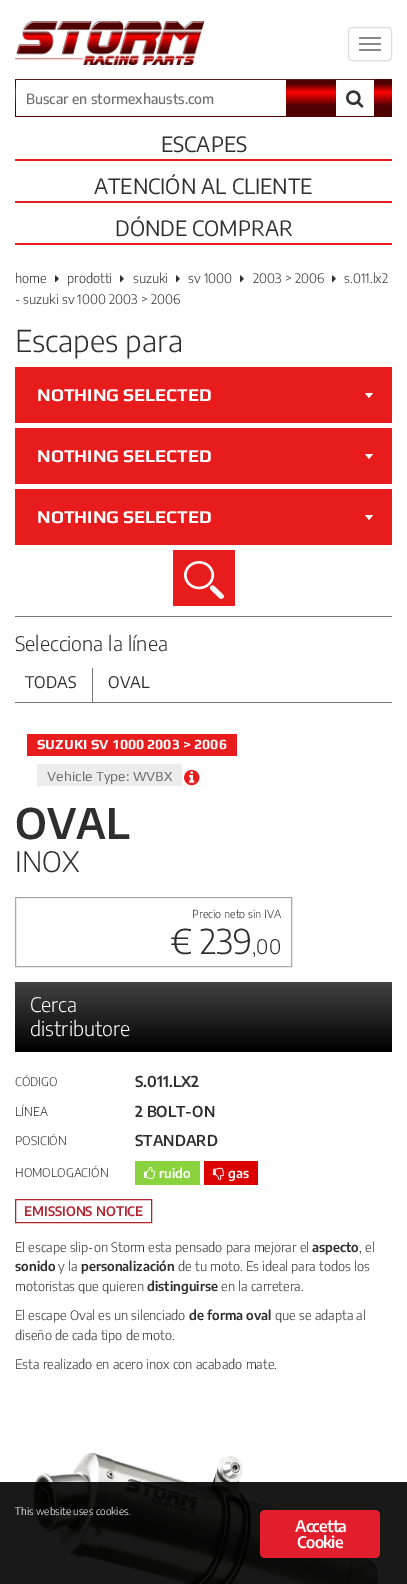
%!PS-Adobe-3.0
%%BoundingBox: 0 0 407 1584
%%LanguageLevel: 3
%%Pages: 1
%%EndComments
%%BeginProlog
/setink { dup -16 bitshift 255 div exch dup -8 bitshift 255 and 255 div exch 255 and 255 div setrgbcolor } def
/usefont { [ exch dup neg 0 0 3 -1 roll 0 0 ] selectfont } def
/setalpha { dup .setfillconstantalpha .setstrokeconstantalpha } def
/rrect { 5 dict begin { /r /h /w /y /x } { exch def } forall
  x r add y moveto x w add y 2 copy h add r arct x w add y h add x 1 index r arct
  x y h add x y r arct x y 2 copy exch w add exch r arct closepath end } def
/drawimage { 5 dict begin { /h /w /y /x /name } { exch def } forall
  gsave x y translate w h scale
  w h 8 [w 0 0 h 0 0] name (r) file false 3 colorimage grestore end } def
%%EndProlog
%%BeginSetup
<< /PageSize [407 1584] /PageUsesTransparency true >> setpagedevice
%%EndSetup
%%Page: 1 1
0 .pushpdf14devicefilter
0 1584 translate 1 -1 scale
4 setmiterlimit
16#FFFFFF setink
0 0 407 1584 rectfill
(img1.raw) 15 21 189 44 drawimage
16#DDDDDD setink
348.5 27.5 43 33 3.5 rrect stroke
16#888888 setink
359 37 22 2 1 rrect fill
359 43 22 2 1 rrect fill
359 49 22 2 1 rrect fill
gsave 15 80 moveto 375 80 lineto 375 117 lineto 15 117 lineto closepath clip newpath
<< /ShadingType 2 /ColorSpace /DeviceRGB /Coords [195 79 195 117] /Extend [true true] /Function << /FunctionType 3 /Domain [0 1] /Functions [<< /FunctionType 2 /Domain [0 1] /C0 [0.31 0 0] /C1 [0.31 0 0] /N 1 >> << /FunctionType 2 /Domain [0 1] /C0 [0.31 0 0] /C1 [1 0 0] /N 1 >> << /FunctionType 2 /Domain [0 1] /C0 [1 0 0] /C1 [0.31 0 0] /N 1 >> << /FunctionType 2 /Domain [0 1] /C0 [0.31 0 0] /C1 [0.31 0 0] /N 1 >>] /Bounds [0.12 0.35 0.7] /Encode [0 1 0 1 0 1 0 1] >> >> shfill grestore
16#611A1A setink
15 79 360 1 rectfill
16#FFFFFF setink
16 80 270 36 rectfill
/EncodeSans-Medium 14 usefont
16#717171 setink
26 104 moveto (Buscar en stormexhausts.com) show
16#FFFFFF setink
336 80 38 36 rectfill
(img2.raw) 346 90 18 18 drawimage
gsave 375 79 moveto 392 79 lineto 392 117 lineto 375 117 lineto closepath clip newpath
<< /ShadingType 2 /ColorSpace /DeviceRGB /Coords [362 79 362 117] /Extend [true true] /Function << /FunctionType 3 /Domain [0 1] /Functions [<< /FunctionType 2 /Domain [0 1] /C0 [0.31 0 0] /C1 [0.31 0 0] /N 1 >> << /FunctionType 2 /Domain [0 1] /C0 [0.31 0 0] /C1 [1 0 0] /N 1 >> << /FunctionType 2 /Domain [0 1] /C0 [1 0 0] /C1 [0.31 0 0] /N 1 >> << /FunctionType 2 /Domain [0 1] /C0 [0.31 0 0] /C1 [0.31 0 0] /N 1 >>] /Bounds [0.12 0.35 0.7] /Encode [0 1 0 1 0 1 0 1] >> >> shfill grestore
16#E81C1C setink
15 159 377 2 rectfill
/EncodeSans-Regular 21 usefont
16#2E2E2E setink
161 152 moveto (ESCAPES) show
16#E81C1C setink
15 201 377 2 rectfill
16#2E2E2E setink
94 194 moveto (ATENCIÓN AL CLIENTE) show
16#E81C1C setink
15 243 377 2 rectfill
16#2E2E2E setink
115 236 moveto (DÓNDE COMPRAR) show
/EncodeSans-Light 13 usefont
15 283 moveto (home) show
(img3.raw) 55 275 4 8 drawimage
67 283 moveto (prodotti) show
(img3.raw) 120 275 4 8 drawimage
133 283 moveto (suzuki) show
(img3.raw) 176 275 4 8 drawimage
188 283 moveto (sv 1000) show
(img3.raw) 240 275 4 8 drawimage
253 283 moveto (2003 > 2006) show
(img3.raw) 332 275 4 8 drawimage
344 283 moveto (s.011.lx2) show
15 304 moveto (- suzuki sv 1000 2003 > 2006) show
16#777777 setink
15 616 377 1 rectfill
/EncodeSans-Light 30 usefont
16#2E2E2E setink
15 352 moveto (Escapes para) show
16#E81C1C setink
15 367 377 56 rectfill
/Play-Bold 18 usefont
16#FFFFFF setink
37 401 moveto (NOTHING SELECTED) show
365 393 moveto 373 393 lineto 369 398 lineto closepath fill
16#E81C1C setink
15 428 377 56 rectfill
16#FFFFFF setink
37 462 moveto (NOTHING SELECTED) show
365 454 moveto 373 454 lineto 369 459 lineto closepath fill
16#E81C1C setink
15 489 377 56 rectfill
16#FFFFFF setink
37 523 moveto (NOTHING SELECTED) show
365 515 moveto 373 515 lineto 369 520 lineto closepath fill
16#E81C1C setink
173 550 62 56 rectfill
(img4.raw) 184 561 40 38 drawimage
16#777777 setink
15 702 377 1 rectfill
/EncodeSans-Light 20 usefont
16#2E2E2E setink
15 651 moveto (Selecciona la línea) show
/EncodeSans-Regular 16 usefont
25 688 moveto (TODAS) show
16#777777 setink
92 668 1 34 rectfill
16#2E2E2E setink
108 688 moveto (OVAL) show
16#E81C1C setink
27 734 210 22 rectfill
/Play-Bold 14 usefont
16#FFFFFF setink
37 749 moveto (SUZUKI SV 1000 2003 > 2006) show
16#ECECED setink
37 764 145 22 rectfill
/Play-Regular 14 usefont
16#717171 setink
47 781 moveto (Vehicle Type: WVBX) show
(img5.raw) 184 769 16 17 drawimage
/EncodeSans-SemiBold 42 usefont
16#2E2E2E setink
15 839 moveto (OVAL) show
/EncodeSans-Light 28 usefont
15 872 moveto (INOX) show
16#A8A8A8 setink
15.5 897.5 276 69 rectstroke
/EncodeSans-Light 11 usefont
16#2E2E2E setink
192 918 moveto (Precio neto sin IVA) show
/EncodeSans-Light 34 usefont
170 954 moveto (€ 239) show
/EncodeSans-Light 20 usefont
252 954 moveto (,00) show
gsave 15 982 moveto 392 982 lineto 392 1052 lineto 15 1052 lineto closepath clip newpath
<< /ShadingType 2 /ColorSpace /DeviceRGB /Coords [204 982 204 1052] /Extend [true true] /Function << /FunctionType 2 /Domain [0 1] /C0 [0.263 0.263 0.263] /C1 [0 0 0] /N 1 >> >> shfill grestore
16#FFFFFF setink
30 1012 moveto (Cerca) show
30 1036 moveto (distributore) show
/EncodeSans-Light 12 usefont
16#2E2E2E setink
15 1086 moveto (CÓDIGO) show
/EncodeSans-SemiBold 15 usefont
135 1087 moveto (S.011.LX2) show
/EncodeSans-Light 12 usefont
15 1116 moveto (LÍNEA) show
/EncodeSans-SemiBold 15 usefont
135 1117 moveto (2 BOLT-ON) show
/EncodeSans-Light 12 usefont
15 1145 moveto (POSICIÓN) show
/EncodeSans-SemiBold 15 usefont
135 1146 moveto (STANDARD) show
/EncodeSans-Light 12 usefont
15 1177 moveto (HOMOLOGACIÓN) show
16#8BD23F setink
135 1161 65 24 rectfill
(img6.raw) 144 1166 12 13 drawimage
/EncodeSans-SemiBold 13 usefont
16#FFFFFF setink
159 1178 moveto (ruido) show
16#DC0000 setink
204 1161 54 24 rectfill
(img7.raw) 213 1167 12 13 drawimage
16#FFFFFF setink
228 1178 moveto (gas) show
16#B02430 setink
15.5 1199.5 136 23 rectstroke
24 1216 moveto (EMISSIONS NOTICE) show
/EncodeSans-Light 13 usefont
16#2E2E2E setink
15 1252 moveto (El escape slip-on Storm esta pensado para mejorar el) show
/EncodeSans-SemiBold 13 usefont
312 1252 moveto (aspecto) show
/EncodeSans-Light 13 usefont
359 1252 moveto (, el) show
/EncodeSans-SemiBold 13 usefont
15 1271 moveto (sonido) show
/EncodeSans-Light 13 usefont
58 1271 moveto (y la) show
/EncodeSans-SemiBold 13 usefont
81 1271 moveto (personalización) show
/EncodeSans-Light 13 usefont
178 1271 moveto (de tu moto. Es ideal para todos los) show
15 1291 moveto (motoristas que quieren) show
/EncodeSans-SemiBold 13 usefont
147 1291 moveto (distinguirse) show
/EncodeSans-Light 13 usefont
221 1291 moveto (en la carretera.) show
15 1320 moveto (El escape Oval es un silenciado) show
/EncodeSans-SemiBold 13 usefont
189 1320 moveto (de forma oval) show
/EncodeSans-Light 13 usefont
[
    [(que se adapta al) 275 1320]
    [(diseño de cada tipo de moto.) 15 1340]
    [(Esta realizado en acero inox con acabado mate.) 15 1369]
] { aload pop moveto show } forall
(img8.raw) 33 1452 346 132 drawimage
0.9 setalpha
16#000000 setink
0 1482 407 102 rectfill
/EncodeSans-Light 10.25 usefont
1 setalpha
16#FFFFFF setink
15 1515 moveto (This website uses cookies.) show
16#E21D2C setink
260 1510 120 48 5 rrect fill
/EncodeSans-SemiBold 16 usefont
16#FFFFFF setink
295 1532 moveto -0.75 0 (Accetta) ashow
297 1548 moveto -0.75 0 (Cookie) ashow
.poppdf14devicefilter showpage
%%EOF
